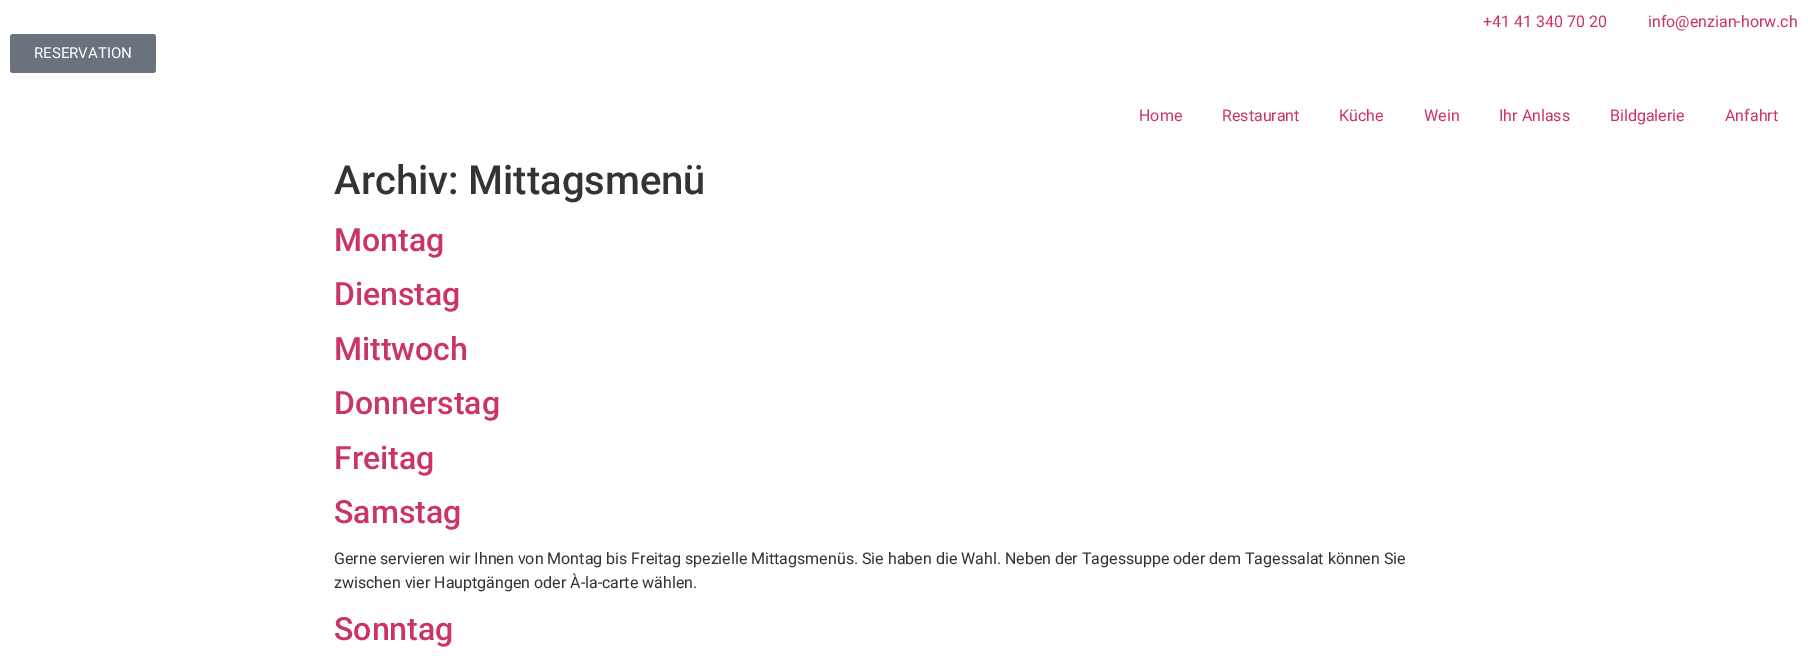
%!PS-Adobe-3.0
%%BoundingBox: 0 0 1808 658
%%LanguageLevel: 3
%%Pages: 1
%%EndComments
%%BeginProlog
/setink { dup -16 bitshift 255 div exch dup -8 bitshift 255 and 255 div exch 255 and 255 div setrgbcolor } def
/usefont { [ exch dup neg 0 0 3 -1 roll 0 0 ] selectfont } def
/rrect { 5 dict begin { /r /h /w /y /x } { exch def } forall
  x r add y moveto x w add y 2 copy h add r arct x w add y h add x 1 index r arct
  x y h add x y r arct x y 2 copy exch w add exch r arct closepath end } def
%%EndProlog
%%BeginSetup
<< /PageSize [1808 658] >> setpagedevice
%%EndSetup
%%Page: 1 1
0 658 translate 1 -1 scale
4 setmiterlimit
16#FFFFFF setink
0 0 1808 658 rectfill
/Roboto-Regular 16 usefont
16#CC3366 setink
1483 27 moveto (+41 41 340 70 20) show
1648 27 moveto (info@enzian-horw.ch) show
16#69727D setink
10 34 146 39 3 rrect fill
/Roboto-Regular 15 usefont
16#FFFFFF setink
34 58 moveto (RESERVATION) show
/Roboto-Regular 16 usefont
16#CC3366 setink
[
    [(Home) 1139 121]
    [(Restaurant) 1222 121]
    [(Küche) 1339 121]
    [(Wein) 1424 121]
    [(Ihr Anlass) 1499 121]
    [(Bildgalerie) 1610 121]
    [(Anfahrt) 1725 121]
] { aload pop moveto show } forall
/Roboto-Medium 40 usefont
16#333333 setink
334 194 moveto (Archiv: Mittagsmenü) show
/Roboto-Medium 32 usefont
16#CC3366 setink
[
    [(Montag) 334 251]
    [(Dienstag) 334 305]
    [(Mittwoch) 334 360]
    [(Donnerstag) 334 414]
    [(Freitag) 334 469]
    [(Samstag) 334 523]
] { aload pop moveto show } forall
/Roboto-Regular 16 usefont
16#333333 setink
334 564 moveto (Gerne servieren wir Ihnen von Montag bis Freitag spezielle Mittagsmenüs. Sie haben die Wahl. Neben der Tagessuppe oder dem Tagessalat können Sie) show
334 588 moveto (zwischen vier Hauptgängen oder À-la-carte wählen.) show
/Roboto-Medium 32 usefont
16#CC3366 setink
334 640 moveto (Sonntag) show
showpage
%%EOF
